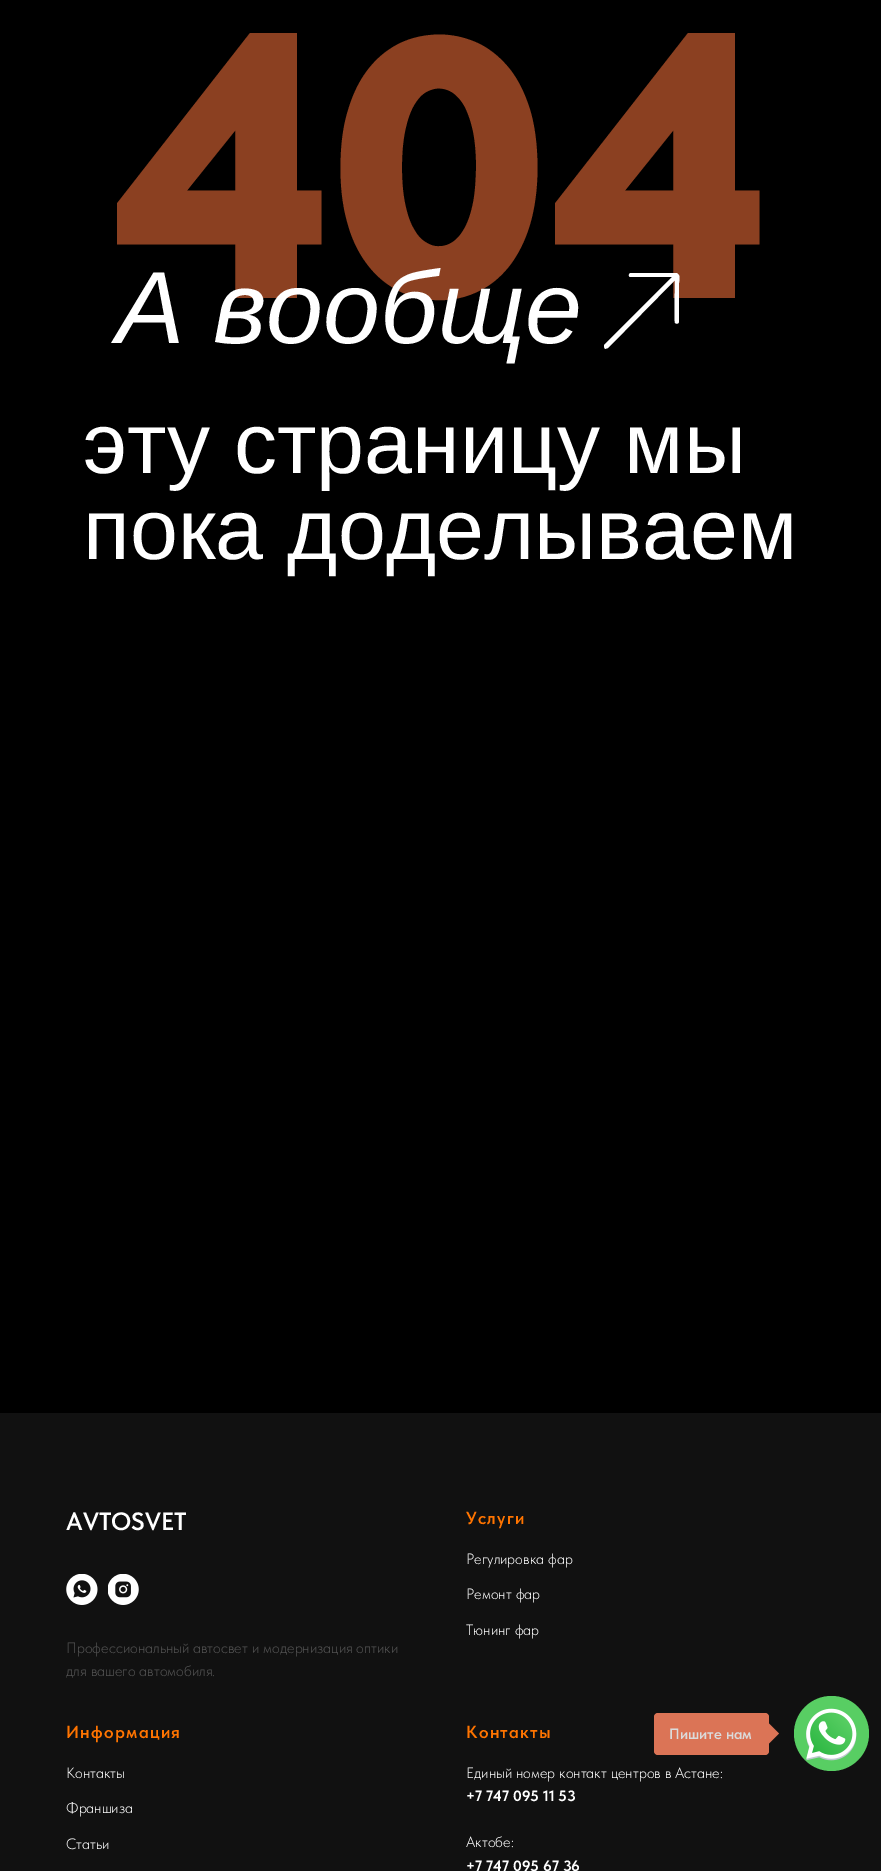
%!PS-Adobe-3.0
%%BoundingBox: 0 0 881 1871
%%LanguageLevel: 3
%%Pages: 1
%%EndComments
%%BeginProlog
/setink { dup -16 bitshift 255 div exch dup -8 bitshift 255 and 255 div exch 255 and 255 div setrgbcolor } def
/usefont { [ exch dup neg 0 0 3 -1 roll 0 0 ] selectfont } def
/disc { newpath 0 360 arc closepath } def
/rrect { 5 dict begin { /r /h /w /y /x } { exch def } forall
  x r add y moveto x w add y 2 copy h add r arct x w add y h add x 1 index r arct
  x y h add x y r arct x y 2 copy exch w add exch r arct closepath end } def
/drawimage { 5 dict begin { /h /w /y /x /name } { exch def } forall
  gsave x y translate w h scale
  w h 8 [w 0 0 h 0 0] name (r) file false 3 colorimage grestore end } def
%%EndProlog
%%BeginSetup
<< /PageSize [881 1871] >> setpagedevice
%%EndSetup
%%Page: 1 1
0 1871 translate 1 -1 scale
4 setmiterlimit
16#111111 setink
0 0 881 1871 rectfill
16#000000 setink
0 0 881 1413 rectfill
/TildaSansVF-Black 375 usefont
16#8B4021 setink
111 298 moveto (404) show
/LiberationSans-Italic 102.5 usefont
16#FFFFFF setink
116 343 moveto (А вообще) show
677 273 moveto 679 275 lineto 680 278 679 283 679 283 curveto 679 322 lineto 678 324 677 324 675 323 curveto 674 321 675 283 675 280 curveto 608 348 lineto 605 349 lineto 604 347 lineto 604 345 lineto 672 277 lineto 630 277 lineto 628 276 629 273 631 273 curveto closepath fill
/LiberationSans-Regular 86.25 usefont
83 473 moveto (эту страницу мы) show
83 559 moveto (пока доделываем) show
/TildaSansVF-SemiBold 25 usefont
66 1530 moveto (AVTOSVET) show
(img1.raw) 66 1574 32 31 drawimage
(img2.raw) 108 1574 31 31 drawimage
/TildaSansVF-Light 15 usefont
16#525252 setink
66 1653 moveto (Профессиональный автосвет и модернизация оптики) show
66 1676 moveto (для вашего автомобиля.) show
/TildaSansVF-SemiBold 17.5 usefont
16#FF7400 setink
466 1524 moveto 1.25 0 (Услуги) ashow
/TildaSansVF-Light 15 usefont
16#FFFFFF setink
[
    [(Регулировка фар) 466 1564]
    [(Ремонт фар) 466 1599]
    [(Тюнинг фар) 466 1635]
] { aload pop moveto show } forall
/TildaSansVF-SemiBold 17.5 usefont
16#FF7400 setink
66 1738 moveto 1.25 0 (Информация) ashow
/TildaSansVF-Light 15 usefont
16#FFFFFF setink
[
    [(Контакты) 66 1778]
    [(Франшиза) 66 1813]
    [(Статьи) 66 1849]
] { aload pop moveto show } forall
/TildaSansVF-SemiBold 17.5 usefont
16#FF7400 setink
466 1738 moveto 1.25 0 (Контакты) ashow
/TildaSansVF-Light 15 usefont
16#FFFFFF setink
466 1778 moveto (Единый номер контакт центров в Астане:) show
/TildaSansVF-Bold 15 usefont
466 1801 moveto (+7 747 095 11 53) show
/TildaSansVF-Light 15 usefont
466 1847 moveto (Актобе:) show
/TildaSansVF-Bold 15 usefont
466 1871 moveto (+7 747 095 67 36) show
16#DB7456 setink
654 1713 115 42 4 rrect fill
/TildaSansVF-SemiBold 15 usefont
16#DBDBDB setink
669 1739 moveto (Пишите нам) show
16#DB7456 setink
769 1743.5 moveto 769 1723.5 lineto 779 1733.5 lineto closepath fill
16#58CE63 setink
831.5 1733.5 37.5 disc fill
(img3.raw) 806 1708 51 53 drawimage
showpage
%%EOF
